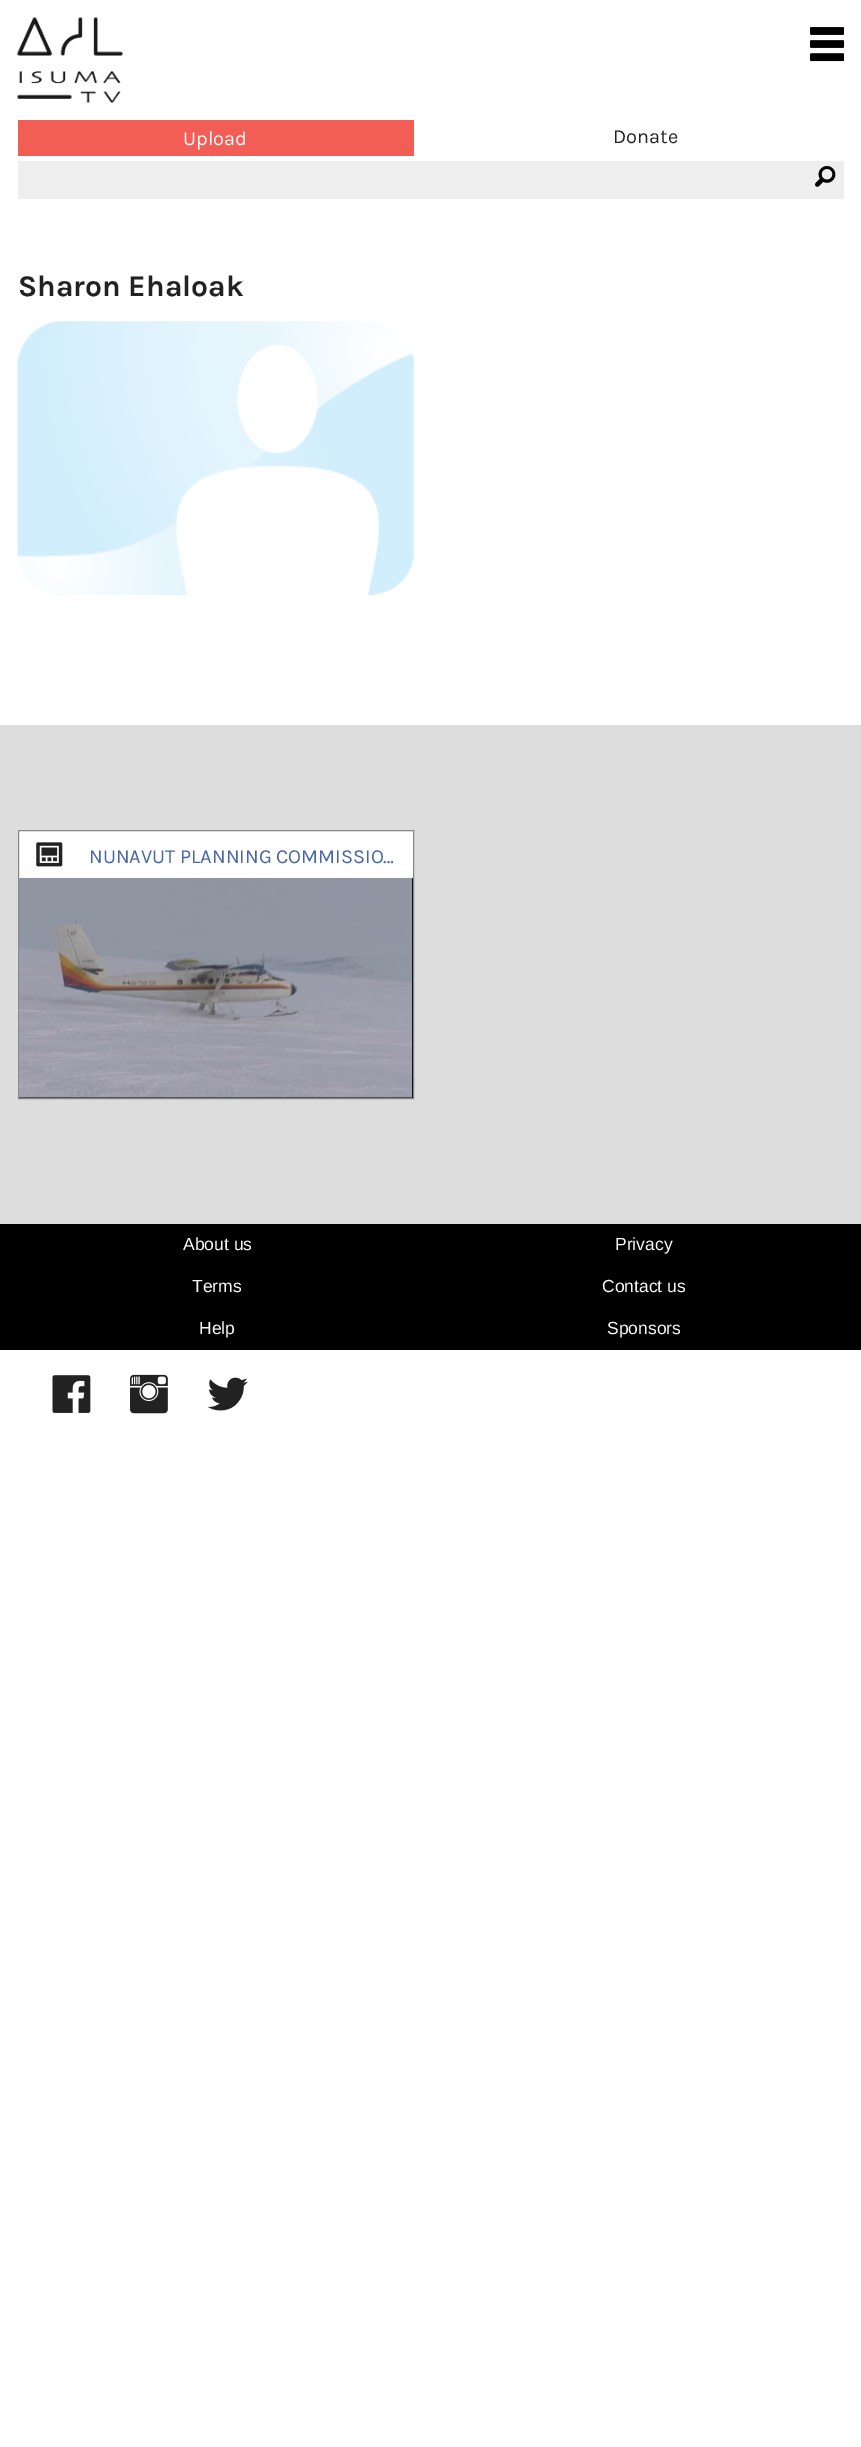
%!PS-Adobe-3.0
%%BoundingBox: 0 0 861 2447
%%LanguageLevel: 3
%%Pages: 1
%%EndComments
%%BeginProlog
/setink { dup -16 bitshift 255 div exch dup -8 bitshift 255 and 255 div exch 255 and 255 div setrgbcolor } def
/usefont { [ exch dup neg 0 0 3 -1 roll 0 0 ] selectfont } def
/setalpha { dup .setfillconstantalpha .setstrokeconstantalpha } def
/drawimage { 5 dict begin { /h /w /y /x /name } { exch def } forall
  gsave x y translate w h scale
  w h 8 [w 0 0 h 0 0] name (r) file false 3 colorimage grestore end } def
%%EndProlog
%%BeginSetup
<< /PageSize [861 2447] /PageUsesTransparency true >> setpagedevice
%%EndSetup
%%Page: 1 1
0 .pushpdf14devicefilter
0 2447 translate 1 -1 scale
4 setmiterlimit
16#FFFFFF setink
0 0 861 2447 rectfill
(img1.raw) 17 17 106 86 drawimage
(img2.raw) 810 27 35 35 drawimage
16#F25D55 setink
18 120 396 36 rectfill
/Karla-Regular 20 usefont
16#FFFFFF setink
183 145 moveto (Upload) show
16#222222 setink
613 143 moveto (Donate) show
16#EEEEEE setink
18 161 826 38 rectfill
(img3.raw) 815 166 21 21 drawimage
/Karla-Bold 30 usefont
16#222222 setink
18 296 moveto (Sharon Ehaloak) show
(img4.raw) 17 321 397 274 drawimage
16#DDDDDD setink
0 725 861 499 rectfill
16#FFFFFF setink
19 831 394 47 rectfill
16#888888 setink
18.5 830.5 395 268 rectstroke
16#000000 setink
19 878 394 220 rectfill
(img6.raw) 18 877 395 221 drawimage
0.95 setalpha
16#FFFFFF setink
19 877 394 1 rectfill
1 setalpha
(img5.raw) 36 842 27 25 drawimage
/Karla-Regular 20 usefont
16#4766A7 setink
89 863 moveto (NUNAVUT PLANNING COMMISSIO…) show
16#000000 setink
0 1224 861 126 rectfill
/LiberationSans-Regular 17.5 usefont
16#F9F9F9 setink
[
    [(About us) 183 1250]
    [(Privacy) 615 1250]
    [(Terms) 192 1292]
    [(Contact us) 602 1292]
    [(Help) 199 1334]
    [(Sponsors) 607 1334]
] { aload pop moveto show } forall
(img7.raw) 52 1375 39 38 drawimage
(img8.raw) 130 1374 38 40 drawimage
(img9.raw) 207 1377 41 34 drawimage
.poppdf14devicefilter showpage
%%EOF
